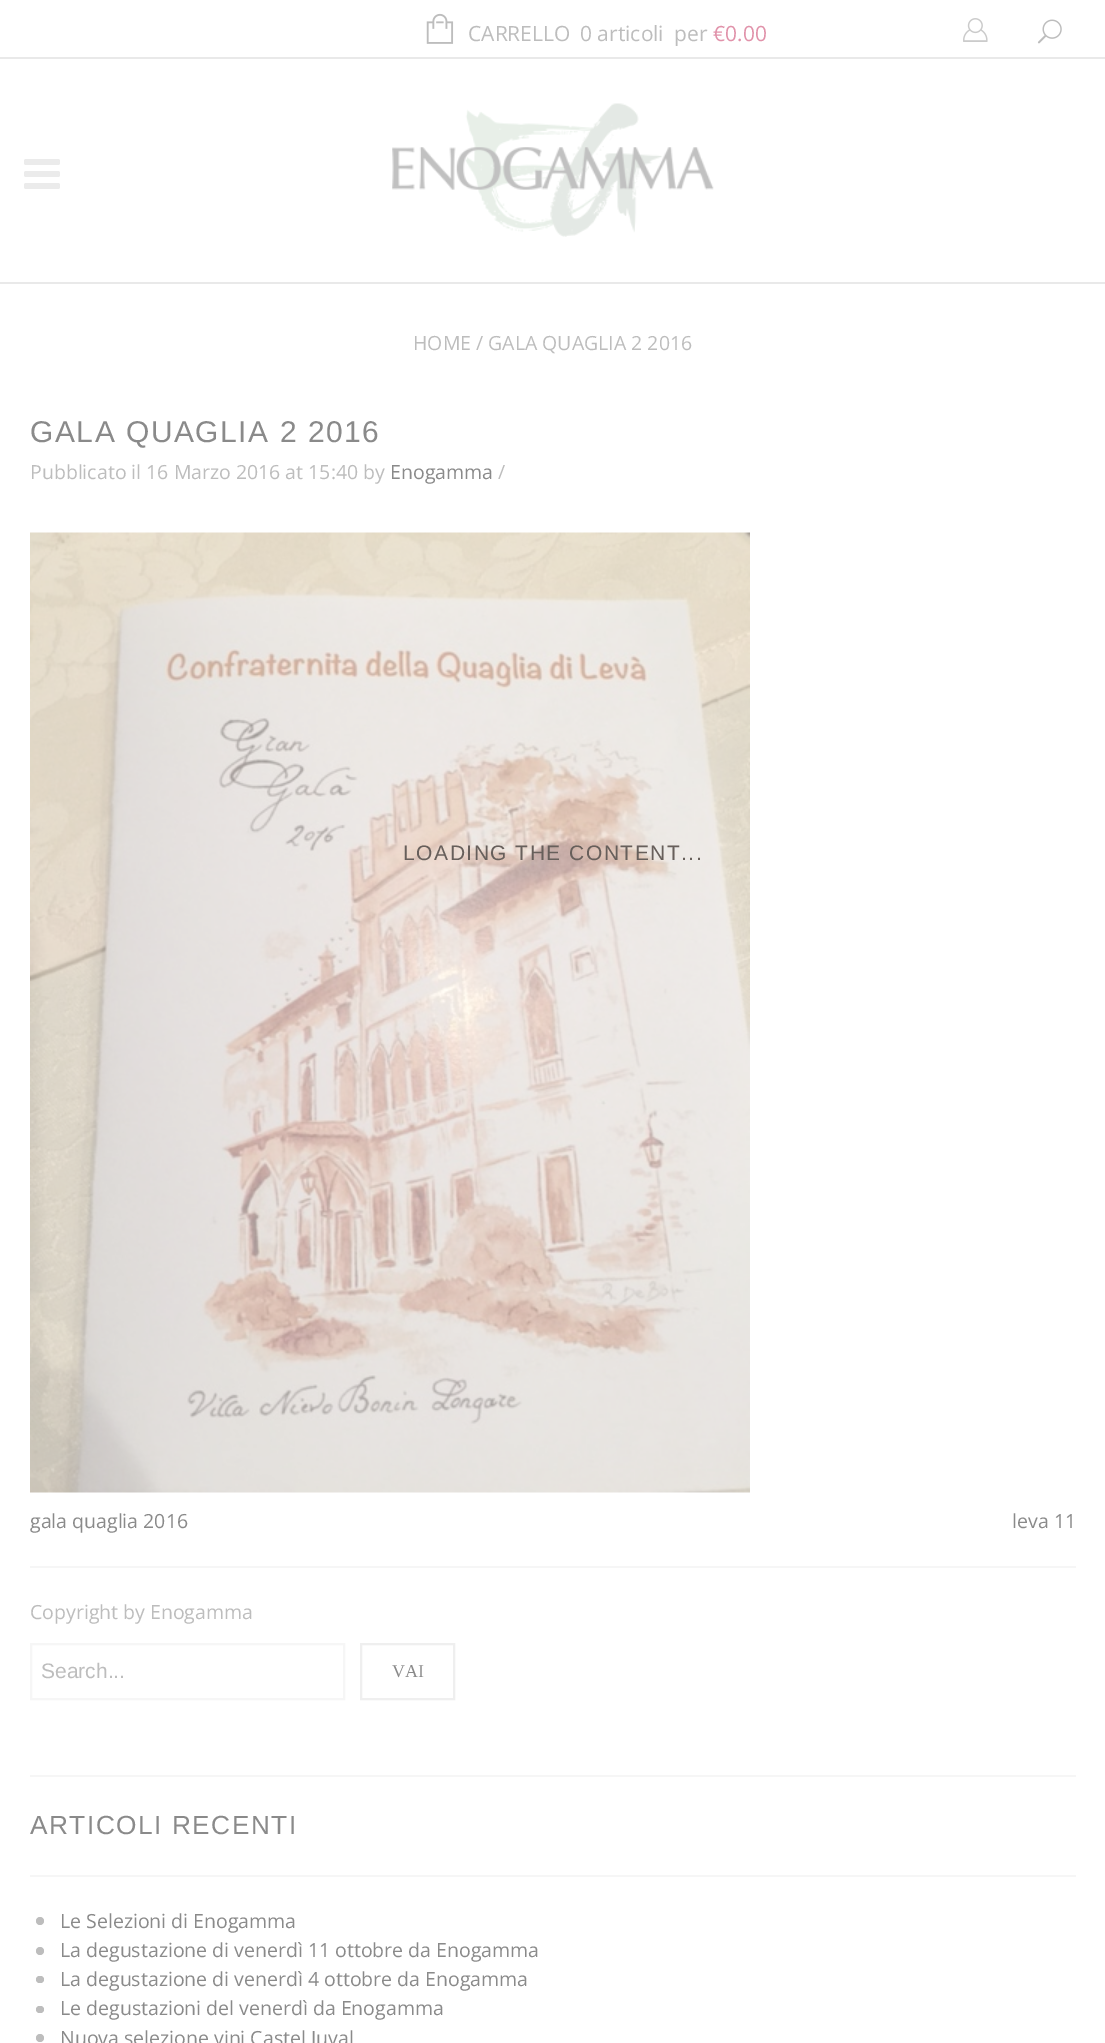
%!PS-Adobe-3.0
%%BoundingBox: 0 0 1105 2043
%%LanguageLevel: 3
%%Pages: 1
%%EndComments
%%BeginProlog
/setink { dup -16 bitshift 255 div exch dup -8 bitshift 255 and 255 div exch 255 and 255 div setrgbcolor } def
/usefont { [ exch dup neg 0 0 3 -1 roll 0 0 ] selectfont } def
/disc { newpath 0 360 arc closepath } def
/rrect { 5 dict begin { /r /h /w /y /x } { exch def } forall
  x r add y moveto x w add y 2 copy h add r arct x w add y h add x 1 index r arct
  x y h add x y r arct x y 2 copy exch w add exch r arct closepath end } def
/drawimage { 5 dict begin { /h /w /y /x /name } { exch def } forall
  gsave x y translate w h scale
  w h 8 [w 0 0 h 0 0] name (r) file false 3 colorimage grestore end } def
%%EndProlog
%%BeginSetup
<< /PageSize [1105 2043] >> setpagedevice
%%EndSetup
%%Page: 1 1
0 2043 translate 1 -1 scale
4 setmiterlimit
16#FFFFFF setink
0 0 1105 2043 rectfill
16#E9E9E9 setink
0 57 1105 2 rectfill
(img1.raw) 963 18 25 24 drawimage
(img2.raw) 1037 19 25 25 drawimage
0 282 1105 2 rectfill
(img3.raw) 426 13 28 31 drawimage
/OpenSans-Regular 21 usefont
16#BDBDBD setink
[
    [(CARRELLO) 468 41]
    [(0 articoli) 580 41]
    [(per) 674 41]
] { aload pop moveto show } forall
16#E192AA setink
713 41 moveto (€0.00) show
(img4.raw) 24 159 36 30 drawimage
(img5.raw) 392 103 322 134 drawimage
/OpenSans-Regular 19.5 usefont
16#BDBDBD setink
413 350 moveto (HOME / GALA QUAGLIA 2 2016) show
16#F6F6F6 setink
30 1566 1046 2 rectfill
/LiberationSans-Regular 30 usefont
16#8A8A8A setink
30 442 moveto 1.5 0 (GALA QUAGLIA 2 2016) ashow
/OpenSans-Regular 19.5 usefont
16#BDBDBD setink
30 479 moveto (Pubblicato il 16 Marzo 2016 at 15:40 by) show
16#8A8A8A setink
390 479 moveto (Enogamma) show
16#BDBDBD setink
498 479 moveto (/) show
(img6.raw) 30 532 720 961 drawimage
16#8A8A8A setink
30 1528 moveto (gala quaglia 2016) show
1012 1528 moveto (leva 11) show
16#BDBDBD setink
30 1619 moveto (Copyright by Enogamma) show
16#F6F6F6 setink
2 setlinewidth
31 1644 313 55 rectstroke
/LiberationSans-Regular 21 usefont
16#BDBDBD setink
41 1678 moveto (Search...) show
16#EFEFEF setink
361 1644 93 55 rectstroke
/LiberationSerif-Regular 18 usefont
16#8A8A8A setink
392 1677 moveto (VAI) show
16#F6F6F6 setink
30 1775 1046 2 rectfill
30 1875 1046 2 rectfill
/LiberationSans-Regular 26.25 usefont
16#8A8A8A setink
30 1834 moveto 1.5 0 (ARTICOLI RECENTI) ashow
16#BDBDBD setink
40 1921 4 disc fill
/OpenSans-Regular 19.5 usefont
16#8A8A8A setink
60 1928 moveto (Le Selezioni di Enogamma) show
16#BDBDBD setink
40 1951 4 disc fill
16#8A8A8A setink
60 1957 moveto (La degustazione di venerdì 11 ottobre da Enogamma) show
16#BDBDBD setink
36 1976 8 7 3.5 rrect fill
16#8A8A8A setink
60 1986 moveto (La degustazione di venerdì 4 ottobre da Enogamma) show
16#BDBDBD setink
36 2006 8 7 3.5 rrect fill
16#8A8A8A setink
60 2015 moveto (Le degustazioni del venerdì da Enogamma) show
16#BDBDBD setink
40 2038 4 disc fill
16#8A8A8A setink
60 2045 moveto (Nuova selezione vini Castel Juval) show
/LiberationSans-Regular 21 usefont
16#675F5B setink
403 860 moveto 1.5 0 (LOADING THE CONTENT...) ashow
showpage
%%EOF
